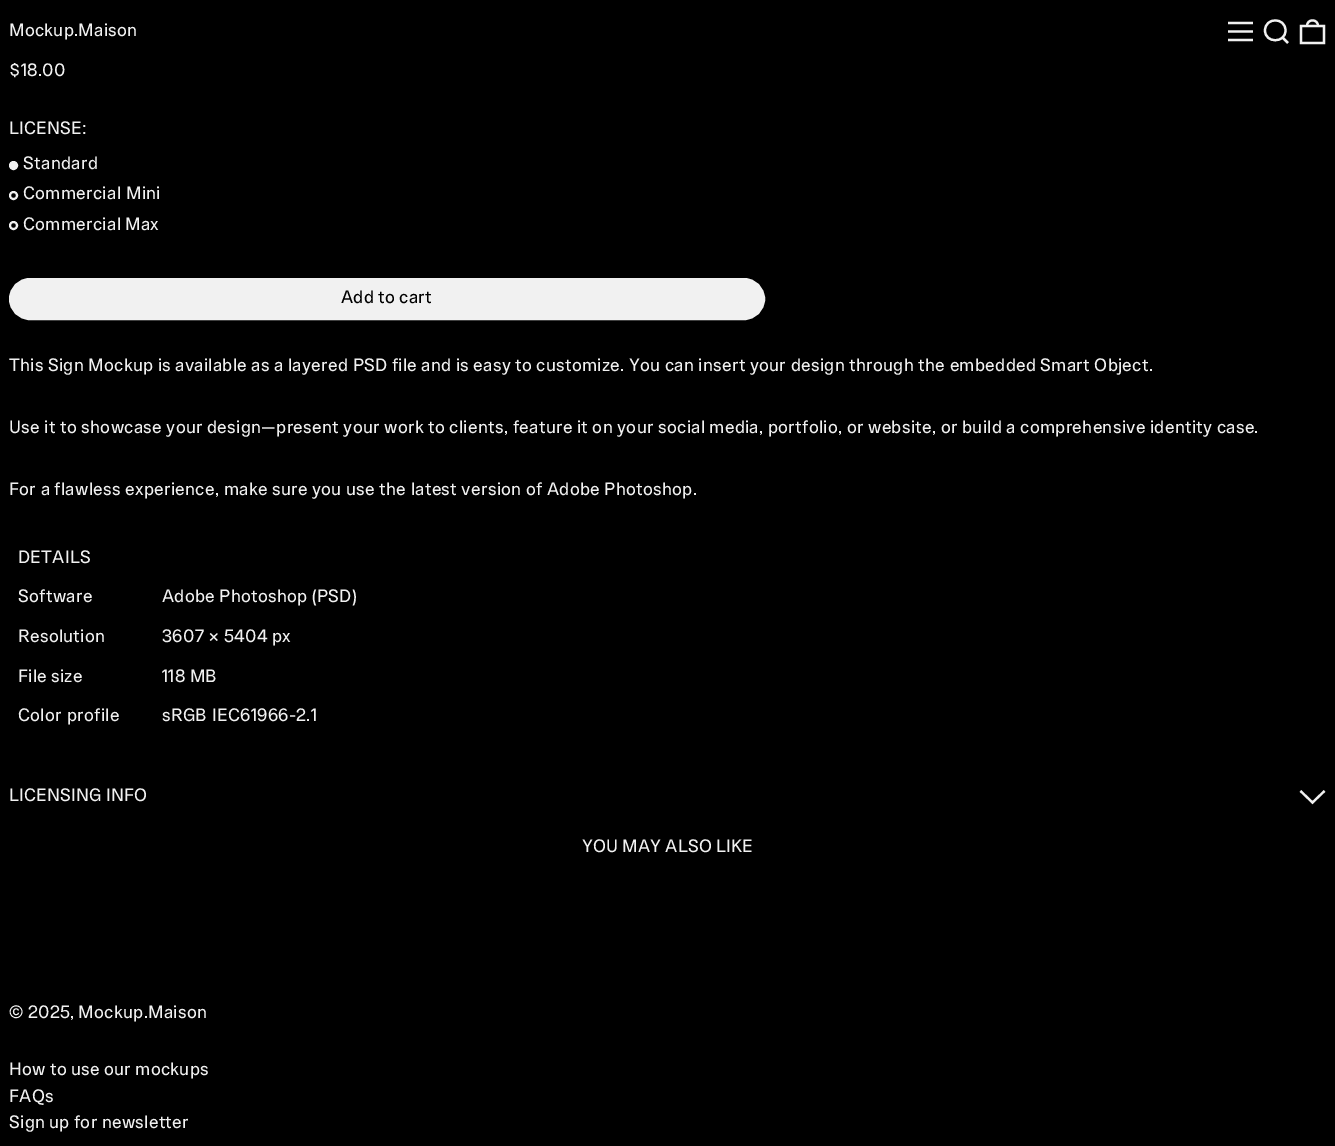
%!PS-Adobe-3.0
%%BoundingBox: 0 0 1335 1146
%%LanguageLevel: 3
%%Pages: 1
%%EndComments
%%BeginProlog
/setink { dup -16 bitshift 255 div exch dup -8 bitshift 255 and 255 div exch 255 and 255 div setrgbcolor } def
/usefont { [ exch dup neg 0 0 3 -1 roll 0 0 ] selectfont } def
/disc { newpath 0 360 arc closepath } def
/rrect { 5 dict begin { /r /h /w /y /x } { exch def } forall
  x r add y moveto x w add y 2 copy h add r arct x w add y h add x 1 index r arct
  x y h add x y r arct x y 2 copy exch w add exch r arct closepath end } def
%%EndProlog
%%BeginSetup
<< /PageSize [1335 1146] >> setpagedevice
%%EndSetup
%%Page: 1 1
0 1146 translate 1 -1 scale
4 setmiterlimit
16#000000 setink
0 0 1335 1146 rectfill
/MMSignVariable-Regular 18 usefont
16#F1F1F1 setink
9 76 moveto 0.27 0 ($18.00) ashow
16#000000 setink
13 62 3 1 rectfill
16#F1F1F1 setink
9 36 moveto 0.27 0 (Mockup.Maison) ashow
2.2 setlinewidth
1228 23 moveto 1253 23 lineto 1228 31.5 moveto 1253 31.5 lineto 1228 40 moveto 1253 40 lineto 1265 30.5 moveto 1265 43.5 1285.5 43.5 1285.5 30.5 curveto 1285.5 17 1265 17 1265 30.5 curveto closepath 1282.5 37.5 moveto 1288 43 lineto stroke
1301 26 moveto 1324 26 lineto 1324 43 lineto 1301 43 lineto closepath 1318 26 moveto 1318 18.5 1307 18.5 1307 26 curveto stroke
9 134 moveto 0.27 0 (LICENSE:) ashow
13.5 165.5 3.5 disc gsave fill grestore
2 setlinewidth
stroke
23 169 moveto 0.27 0 (Standard) ashow
13.5 195.5 3.5 disc stroke
23 199 moveto 1 0 32 0.27 0 (Commercial Mini) awidthshow
13.5 225.5 3.5 disc stroke
23 230 moveto 0.27 0 (Commercial Max) ashow
10 279 754 40 20 rrect gsave fill grestore
stroke
16#000000 setink
341 303 moveto 0.27 0 (Add to cart) ashow
16#F1F1F1 setink
9 371 moveto 0.2 0 32 0.27 0 (This Sign Mockup is available as a layered PSD file and is easy to customize. You can insert your design through the embedded Smart Object.) awidthshow
9 433 moveto 0.25 0 32 0.27 0 (Use it to showcase your design—present your work to clients, feature it on your social media, portfolio, or website, or build a comprehensive identity case.) awidthshow
9 495 moveto 0.25 0 32 0.27 0 (For a flawless experience, make sure you use the latest version of Adobe Photoshop.) awidthshow
18 563 moveto 0.27 0 (DETAILS) ashow
18 602 moveto 0.27 0 (Software) ashow
162 602 moveto 0.27 0 (Adobe Photoshop \(PSD\)) ashow
18 642 moveto 0.27 0 (Resolution) ashow
162 642 moveto 0.27 0 (3607 × 5404 px) ashow
18 682 moveto 0.27 0 (File size) ashow
162 682 moveto 0.27 0 (118 MB) ashow
18 721 moveto 1 0 32 0.27 0 (Color profile) awidthshow
162 721 moveto 1 0 32 0.27 0 (sRGB IEC61966-2.1) awidthshow
9 801 moveto 0.2 0 (LICENSING INFO) ashow
2.2 setlinewidth
1300.5 791 moveto 1312.5 802.5 lineto 1324.5 791 lineto stroke
582 852 moveto 0.2 0 (YOU MAY ALSO LIKE) ashow
9 1018 moveto 0.27 0 (© 2025, Mockup.Maison) ashow
9 1075 moveto 0.27 0 (How to use our mockups) ashow
9 1102 moveto 0.27 0 (FAQs) ashow
9 1128 moveto 0.27 0 (Sign up for newsletter) ashow
showpage
%%EOF
